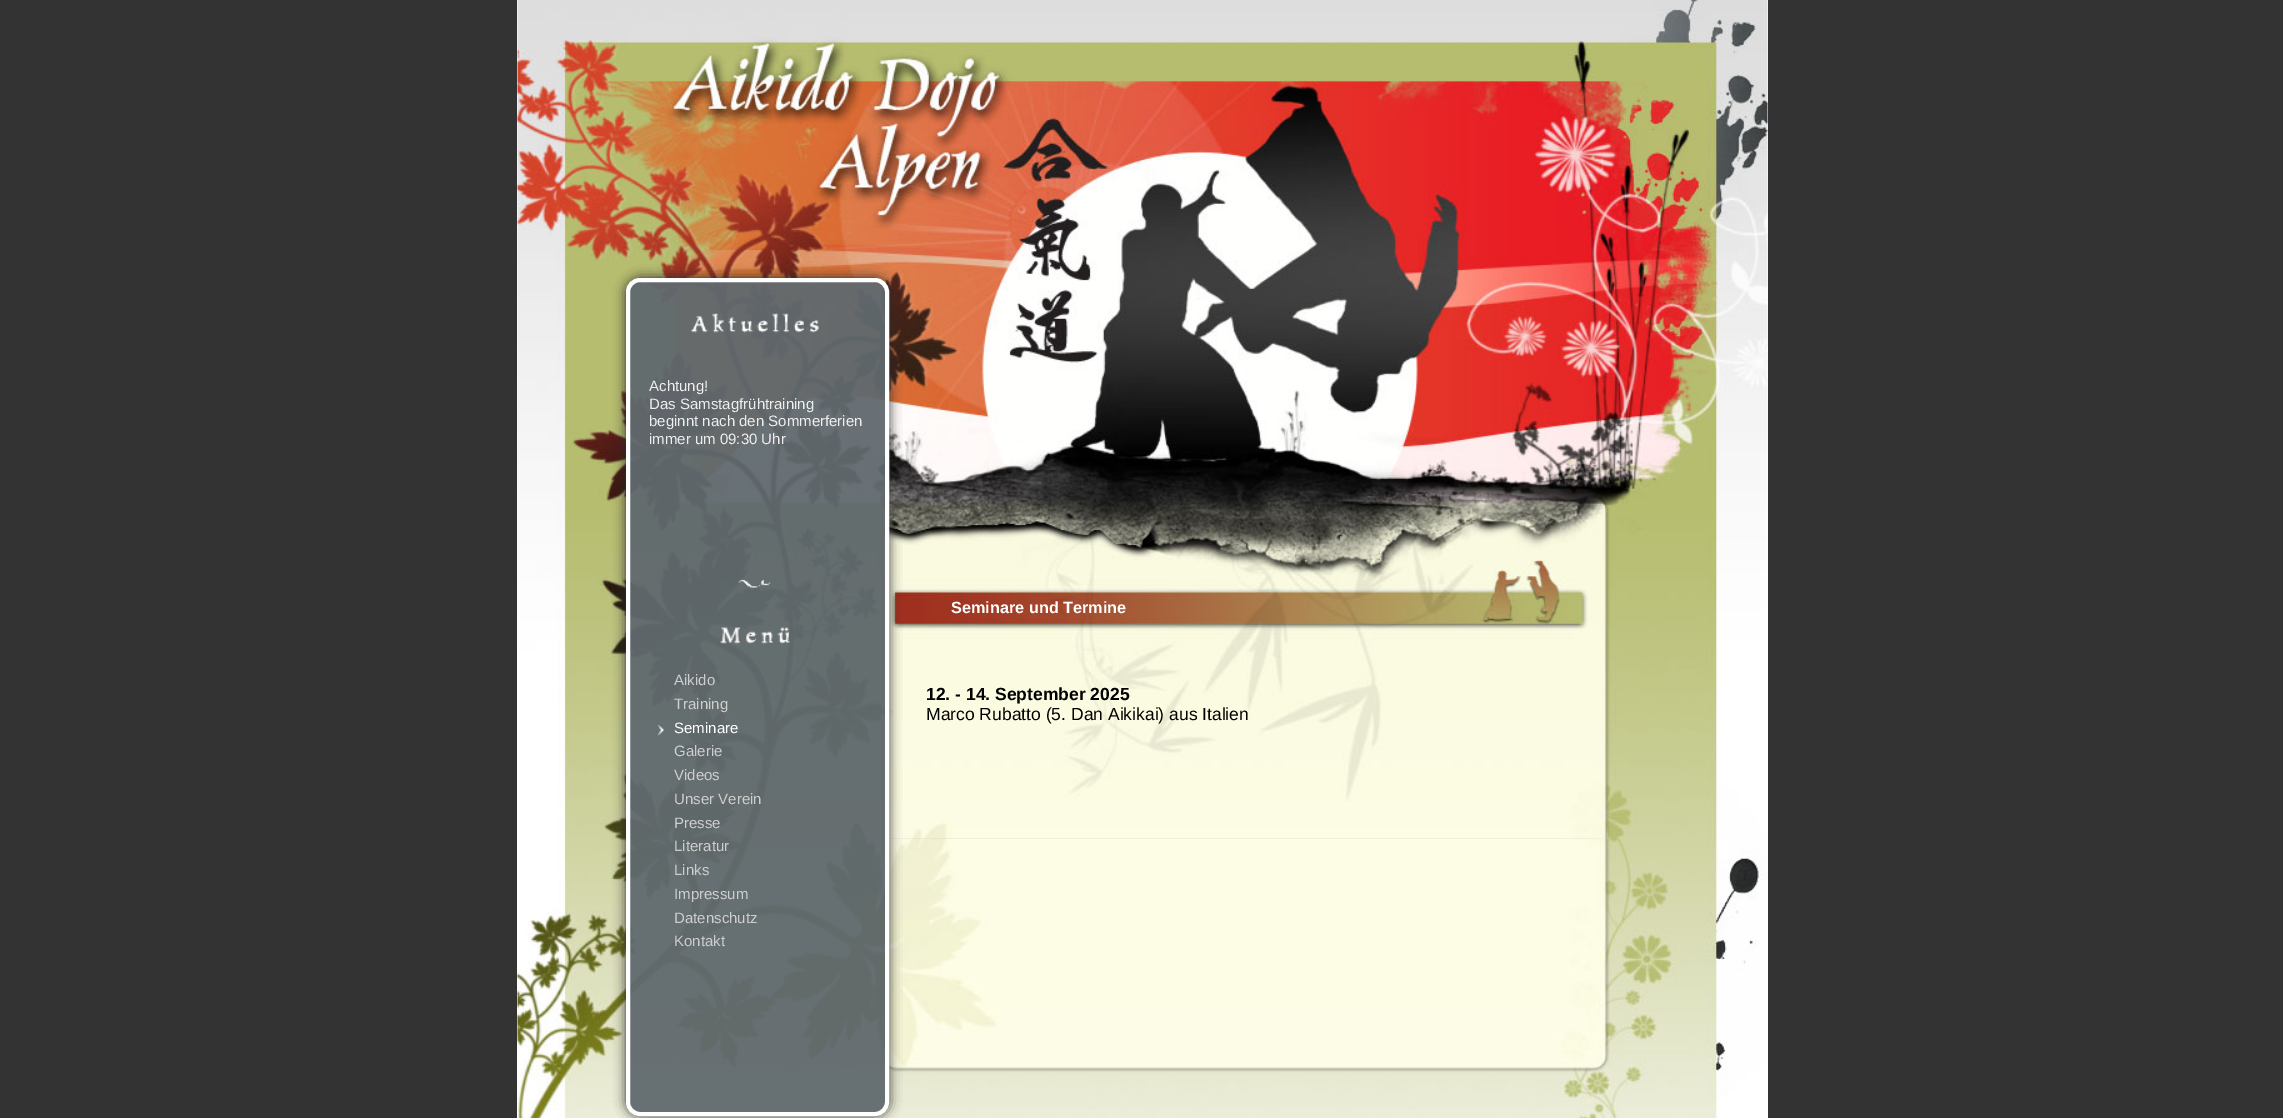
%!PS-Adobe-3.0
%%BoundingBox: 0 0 2283 1118
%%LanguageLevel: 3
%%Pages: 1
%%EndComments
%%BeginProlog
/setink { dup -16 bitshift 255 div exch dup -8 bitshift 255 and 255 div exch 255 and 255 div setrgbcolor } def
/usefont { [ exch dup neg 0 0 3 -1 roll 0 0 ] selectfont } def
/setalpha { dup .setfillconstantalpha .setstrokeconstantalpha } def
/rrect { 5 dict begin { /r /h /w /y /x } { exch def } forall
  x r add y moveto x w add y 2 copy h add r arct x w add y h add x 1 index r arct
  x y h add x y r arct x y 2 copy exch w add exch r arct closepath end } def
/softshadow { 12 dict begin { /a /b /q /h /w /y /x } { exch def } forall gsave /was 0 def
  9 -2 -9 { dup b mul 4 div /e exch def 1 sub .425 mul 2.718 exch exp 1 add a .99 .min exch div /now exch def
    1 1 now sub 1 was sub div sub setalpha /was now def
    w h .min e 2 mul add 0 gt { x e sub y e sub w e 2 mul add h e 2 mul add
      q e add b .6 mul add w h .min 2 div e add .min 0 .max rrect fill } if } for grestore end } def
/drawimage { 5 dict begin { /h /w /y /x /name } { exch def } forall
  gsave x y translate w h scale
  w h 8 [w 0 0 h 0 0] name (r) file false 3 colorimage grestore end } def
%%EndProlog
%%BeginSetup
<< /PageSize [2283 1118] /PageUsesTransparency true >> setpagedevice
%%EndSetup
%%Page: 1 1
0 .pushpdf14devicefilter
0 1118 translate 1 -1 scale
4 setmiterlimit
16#333333 setink
0 0 2283 1118 rectfill
16#FFFFFF setink
517 0 1251 1118 rectfill
(img1.raw) 517 0 1251 1118 drawimage
(img5.raw) 882 628 726 211 drawimage
(img6.raw) 882 811 726 28 drawimage
(img7.raw) 882 628 726 211 drawimage
gsave
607 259 moveto 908 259 lineto 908 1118 lineto 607 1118 lineto closepath 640 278 moveto 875 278 lineto 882.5 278 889 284.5 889 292 curveto 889 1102 lineto 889 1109.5 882.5 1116 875 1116 curveto 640 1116 lineto 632.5 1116 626 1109.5 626 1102 curveto 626 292 lineto 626 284.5 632.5 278 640 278 curveto closepath eoclip newpath
16#292929 setink
626 278 263 838 14 6 1 softshadow
grestore
0.95 setalpha
16#60696E setink
628 280 259 834 12 rrect fill
1 setalpha
16#FFFFFF setink
4 setlinewidth
628 280 259 834 12 rrect stroke
(img2.raw) 691 313 128 20 drawimage
/LiberationSans-Regular 15 usefont
16#EEEEEE setink
[
    [(Achtung!) 649 391]
    [(Das Samstagfrühtraining) 649 409]
    [(beginnt nach den Sommerferien) 649 426]
    [(immer um 09:30 Uhr) 649 444]
] { aload pop moveto show } forall
(img3.raw) 720 579 71 65 drawimage
16#CECECE setink
674 685 moveto (Aikido) show
674 709 moveto (Training) show
(img4.raw) 657 724 7 12 drawimage
16#FFFFFF setink
674 733 moveto (Seminare) show
16#CECECE setink
[
    [(Galerie) 674 756]
    [(Videos) 674 780]
    [(Unser Verein) 674 804]
    [(Presse) 674 828]
    [(Literatur) 674 851]
    [(Links) 674 875]
    [(Impressum) 674 899]
    [(Datenschutz) 674 923]
    [(Kontakt) 674 946]
] { aload pop moveto show } forall
/LiberationSans-Bold 16.25 usefont
16#FFFFFF setink
951 613 moveto (Seminare und Termine) show
/LiberationSans-Bold 17.5 usefont
16#000000 setink
926 700 moveto (12. - 14. September 2025) show
/LiberationSans-Regular 17.5 usefont
926 720 moveto (Marco Rubatto \(5. Dan Aikikai\) aus Italien) show
.poppdf14devicefilter showpage
%%EOF
